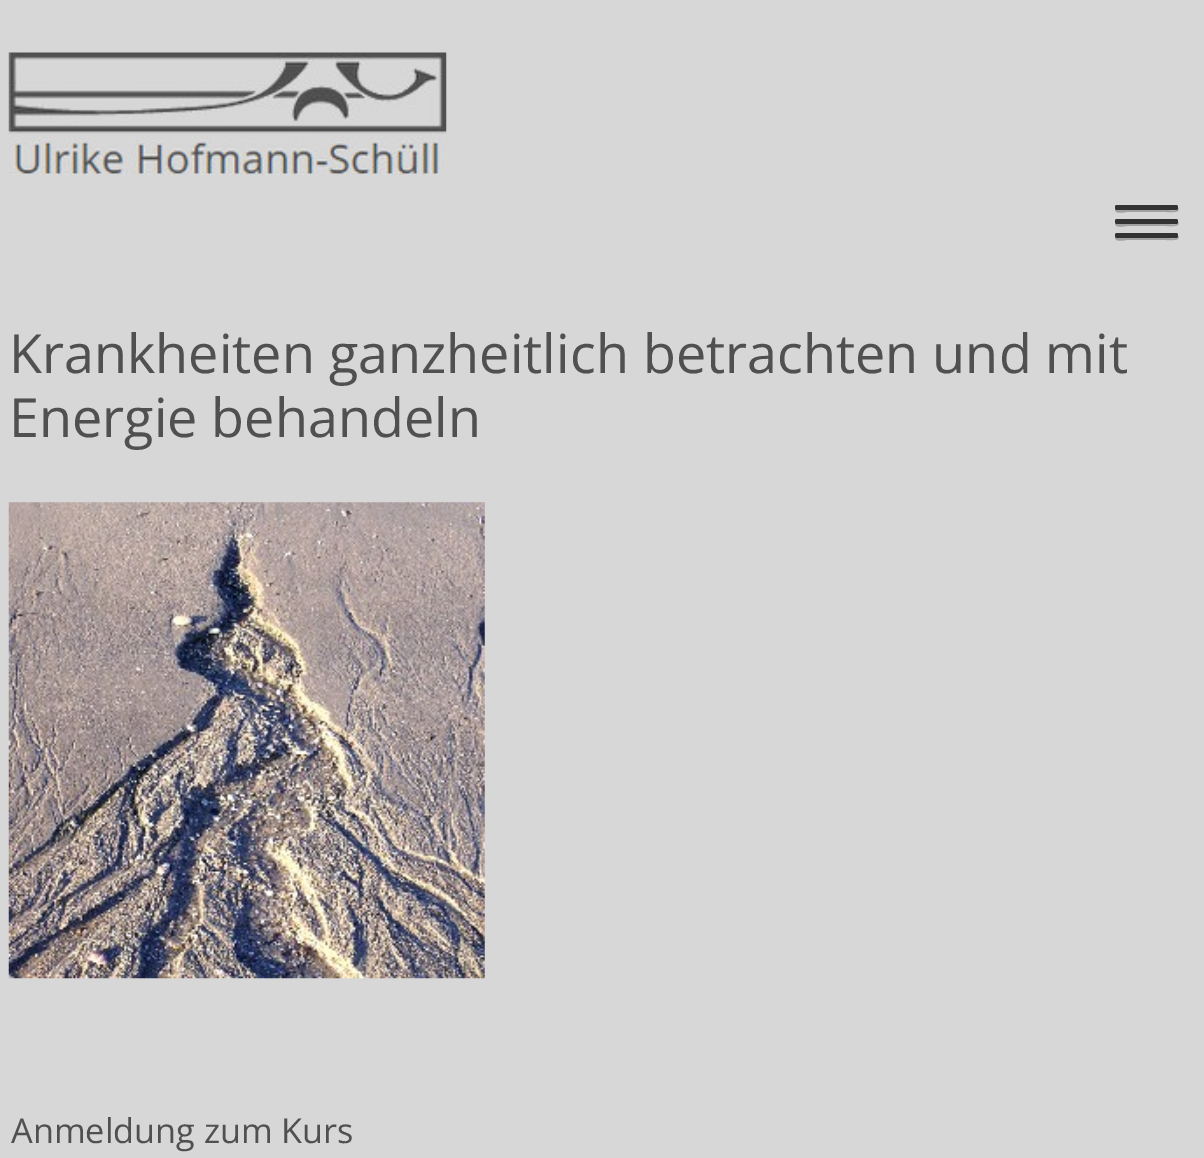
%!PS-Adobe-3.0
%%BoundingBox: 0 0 1204 1158
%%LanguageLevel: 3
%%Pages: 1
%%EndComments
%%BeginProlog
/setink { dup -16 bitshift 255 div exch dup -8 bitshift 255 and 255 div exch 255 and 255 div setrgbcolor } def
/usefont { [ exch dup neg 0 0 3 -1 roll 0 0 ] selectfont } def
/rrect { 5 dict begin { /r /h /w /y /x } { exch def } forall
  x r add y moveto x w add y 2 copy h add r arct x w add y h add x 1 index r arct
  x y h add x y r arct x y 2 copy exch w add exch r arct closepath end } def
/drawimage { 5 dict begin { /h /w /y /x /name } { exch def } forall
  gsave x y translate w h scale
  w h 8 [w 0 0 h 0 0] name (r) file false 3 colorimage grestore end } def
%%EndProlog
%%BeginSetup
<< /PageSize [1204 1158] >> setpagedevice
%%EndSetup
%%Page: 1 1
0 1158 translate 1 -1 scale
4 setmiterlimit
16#D7D7D7 setink
0 0 1204 1158 rectfill
(img1.raw) 8 52 439 123 drawimage
16#A1A1A1 setink
1115 209 moveto 1115 215 1124 212 1127 212 curveto 1166 212 lineto 1172 212 1181 213 1178 208 curveto 1178 212 1170 210 1166 210 curveto 1116 210 lineto closepath fill
16#333333 setink
1115 205 63 5 2 rrect fill
16#A1A1A1 setink
1115 223 moveto 1115 229 1124 226 1127 226 curveto 1166 226 lineto 1172 226 1181 227 1178 222 curveto 1178 226 1170 224 1166 224 curveto 1116 224 lineto closepath fill
16#333333 setink
1115 219 63 5 2 rrect fill
16#A1A1A1 setink
1115 237 moveto 1115 243 1124 240 1127 240 curveto 1166 240 lineto 1172 240 1181 241 1178 236 curveto 1178 240 1170 238 1166 238 curveto 1116 238 lineto closepath fill
16#333333 setink
1115 233 63 5 2 rrect fill
/OpenSans-Regular 53.9 usefont
16#505050 setink
9 373 moveto (Krankheiten ganzheitlich betrachten und mit) show
9 437 moveto (Energie behandeln) show
(img2.raw) 8 502 477 477 drawimage
/OpenSans-Regular 34.25 usefont
11 1143 moveto (Anmeldung zum Kurs) show
showpage
%%EOF
